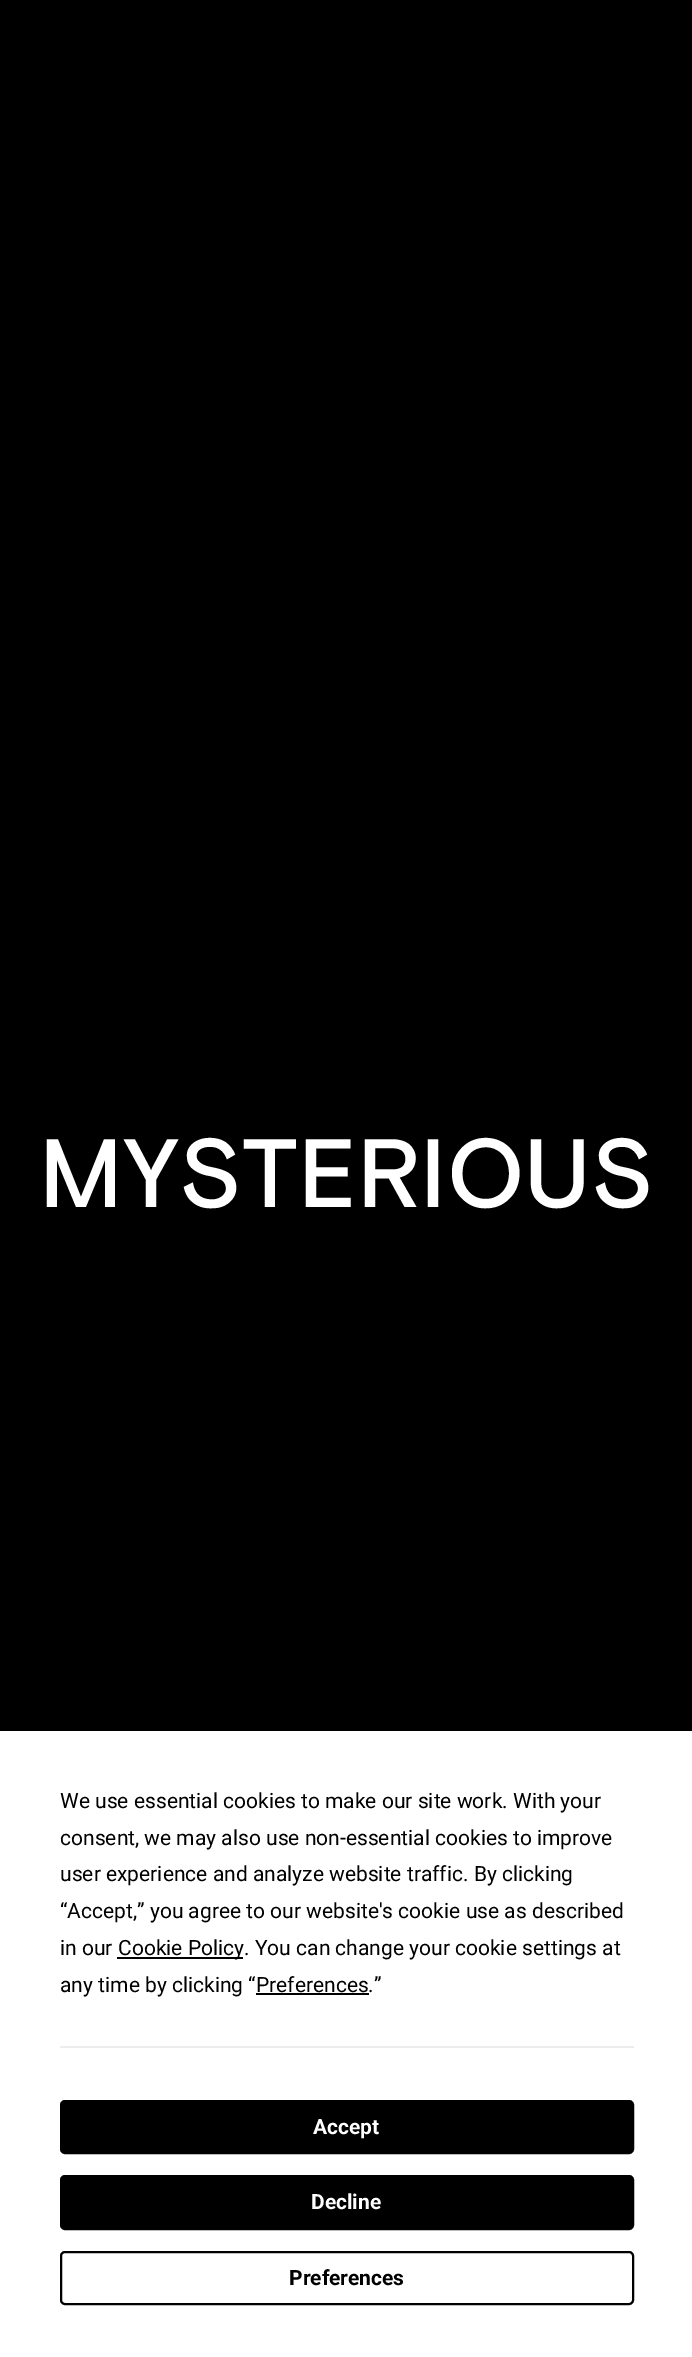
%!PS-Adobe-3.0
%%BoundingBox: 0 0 692 2357
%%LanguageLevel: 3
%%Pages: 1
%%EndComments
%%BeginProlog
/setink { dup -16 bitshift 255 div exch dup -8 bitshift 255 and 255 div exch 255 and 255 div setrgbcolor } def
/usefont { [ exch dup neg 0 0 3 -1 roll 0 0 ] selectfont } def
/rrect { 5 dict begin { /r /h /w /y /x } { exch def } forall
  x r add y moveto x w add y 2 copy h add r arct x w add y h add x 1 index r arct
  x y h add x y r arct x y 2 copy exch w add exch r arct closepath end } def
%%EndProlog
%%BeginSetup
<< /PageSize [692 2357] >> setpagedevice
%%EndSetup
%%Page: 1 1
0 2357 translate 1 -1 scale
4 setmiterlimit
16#000000 setink
0 0 692 2357 rectfill
/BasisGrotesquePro-Medium 97 usefont
16#FFFFFF setink
39 1207 moveto (MYSTERIOUS) show
0 1731 692 626 rectfill
/Roboto-Regular 21 usefont
16#000000 setink
[
    [(We use essential cookies to make our site work. With your) 60 1808]
    [(consent, we may also use non-essential cookies to improve) 60 1845]
    [(user experience and analyze website traffic. By clicking) 60 1881]
    [(“Accept,” you agree to our website's cookie use as described) 60 1918]
    [(in our) 60 1955]
] { aload pop moveto show } forall
117 1957 126 2 rectfill
118 1955 moveto (Cookie Policy. You can change your cookie settings at) show
60 1992 moveto (any time by clicking “Preferences.”) show
256 1993 113 2 rectfill
16#EDEDEF setink
60 2046 574 2 rectfill
16#000000 setink
61 2101 572 52 4 rrect gsave fill grestore
2 setlinewidth
stroke
/Roboto-Bold 21 usefont
16#FFFFFF setink
313 2134 moveto (Accept) show
16#000000 setink
61 2176 572 53 4 rrect gsave fill grestore
stroke
16#FFFFFF setink
311 2209 moveto (Decline) show
16#000000 setink
61 2252 572 52 4 rrect stroke
289 2285 moveto (Preferences) show
showpage
%%EOF
